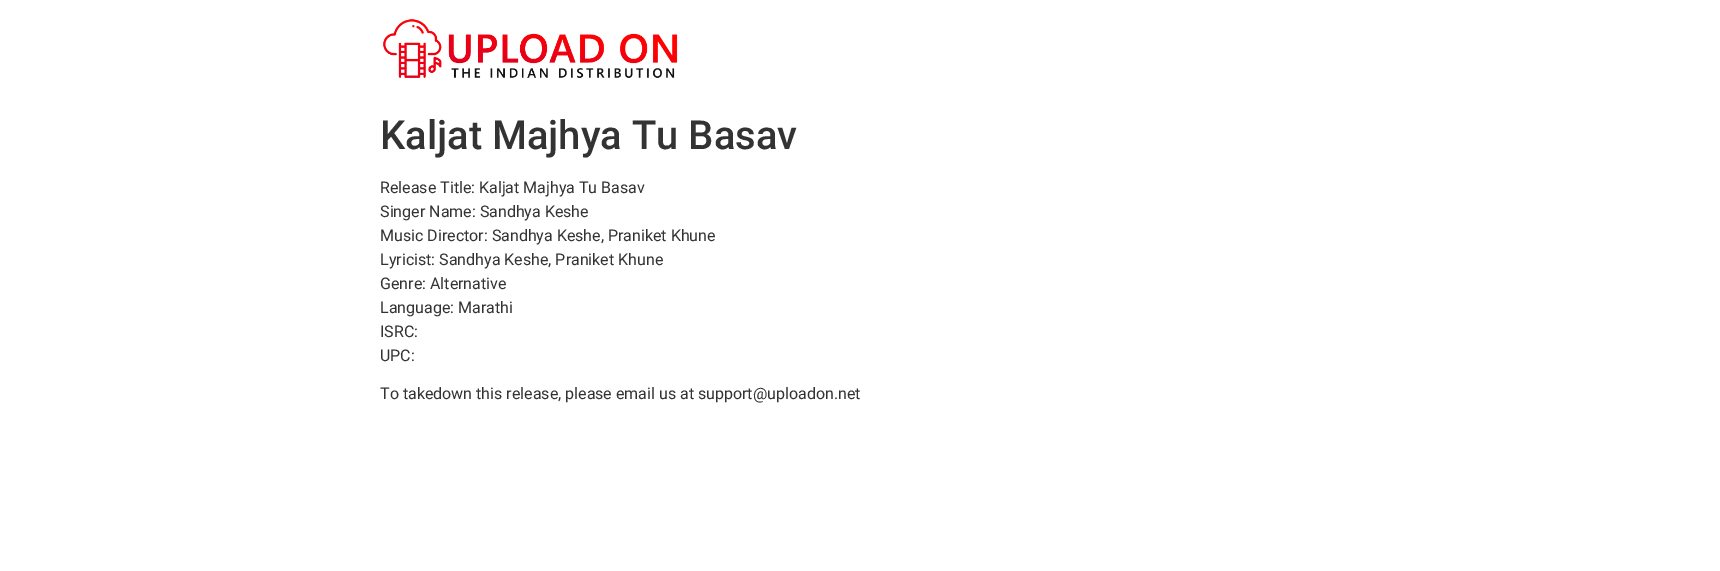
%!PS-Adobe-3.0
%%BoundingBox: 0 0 1720 571
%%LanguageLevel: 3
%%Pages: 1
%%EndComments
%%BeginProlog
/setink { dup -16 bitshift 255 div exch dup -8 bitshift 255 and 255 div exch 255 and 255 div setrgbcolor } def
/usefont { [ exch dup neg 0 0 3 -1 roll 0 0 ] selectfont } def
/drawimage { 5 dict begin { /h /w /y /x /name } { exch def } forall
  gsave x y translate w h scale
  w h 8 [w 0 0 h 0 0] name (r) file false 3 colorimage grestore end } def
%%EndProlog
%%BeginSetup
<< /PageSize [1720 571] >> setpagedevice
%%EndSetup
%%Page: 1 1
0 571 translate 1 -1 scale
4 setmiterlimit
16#FFFFFF setink
0 0 1720 571 rectfill
(img1.raw) 383 19 295 59 drawimage
/Roboto-Medium 40 usefont
16#333333 setink
380 149 moveto (Kaljat Majhya Tu Basav) show
/Roboto-Regular 16 usefont
[
    [(Release Title: Kaljat Majhya Tu Basav) 380 193]
    [(Singer Name: Sandhya Keshe) 380 217]
    [(Music Director: Sandhya Keshe, Praniket Khune) 380 241]
    [(Lyricist: Sandhya Keshe, Praniket Khune) 380 265]
    [(Genre: Alternative) 380 289]
    [(Language: Marathi) 380 313]
    [(ISRC:) 380 337]
    [(UPC:) 380 361]
    [(To takedown this release, please email us at support@uploadon.net) 380 399]
] { aload pop moveto show } forall
showpage
%%EOF
